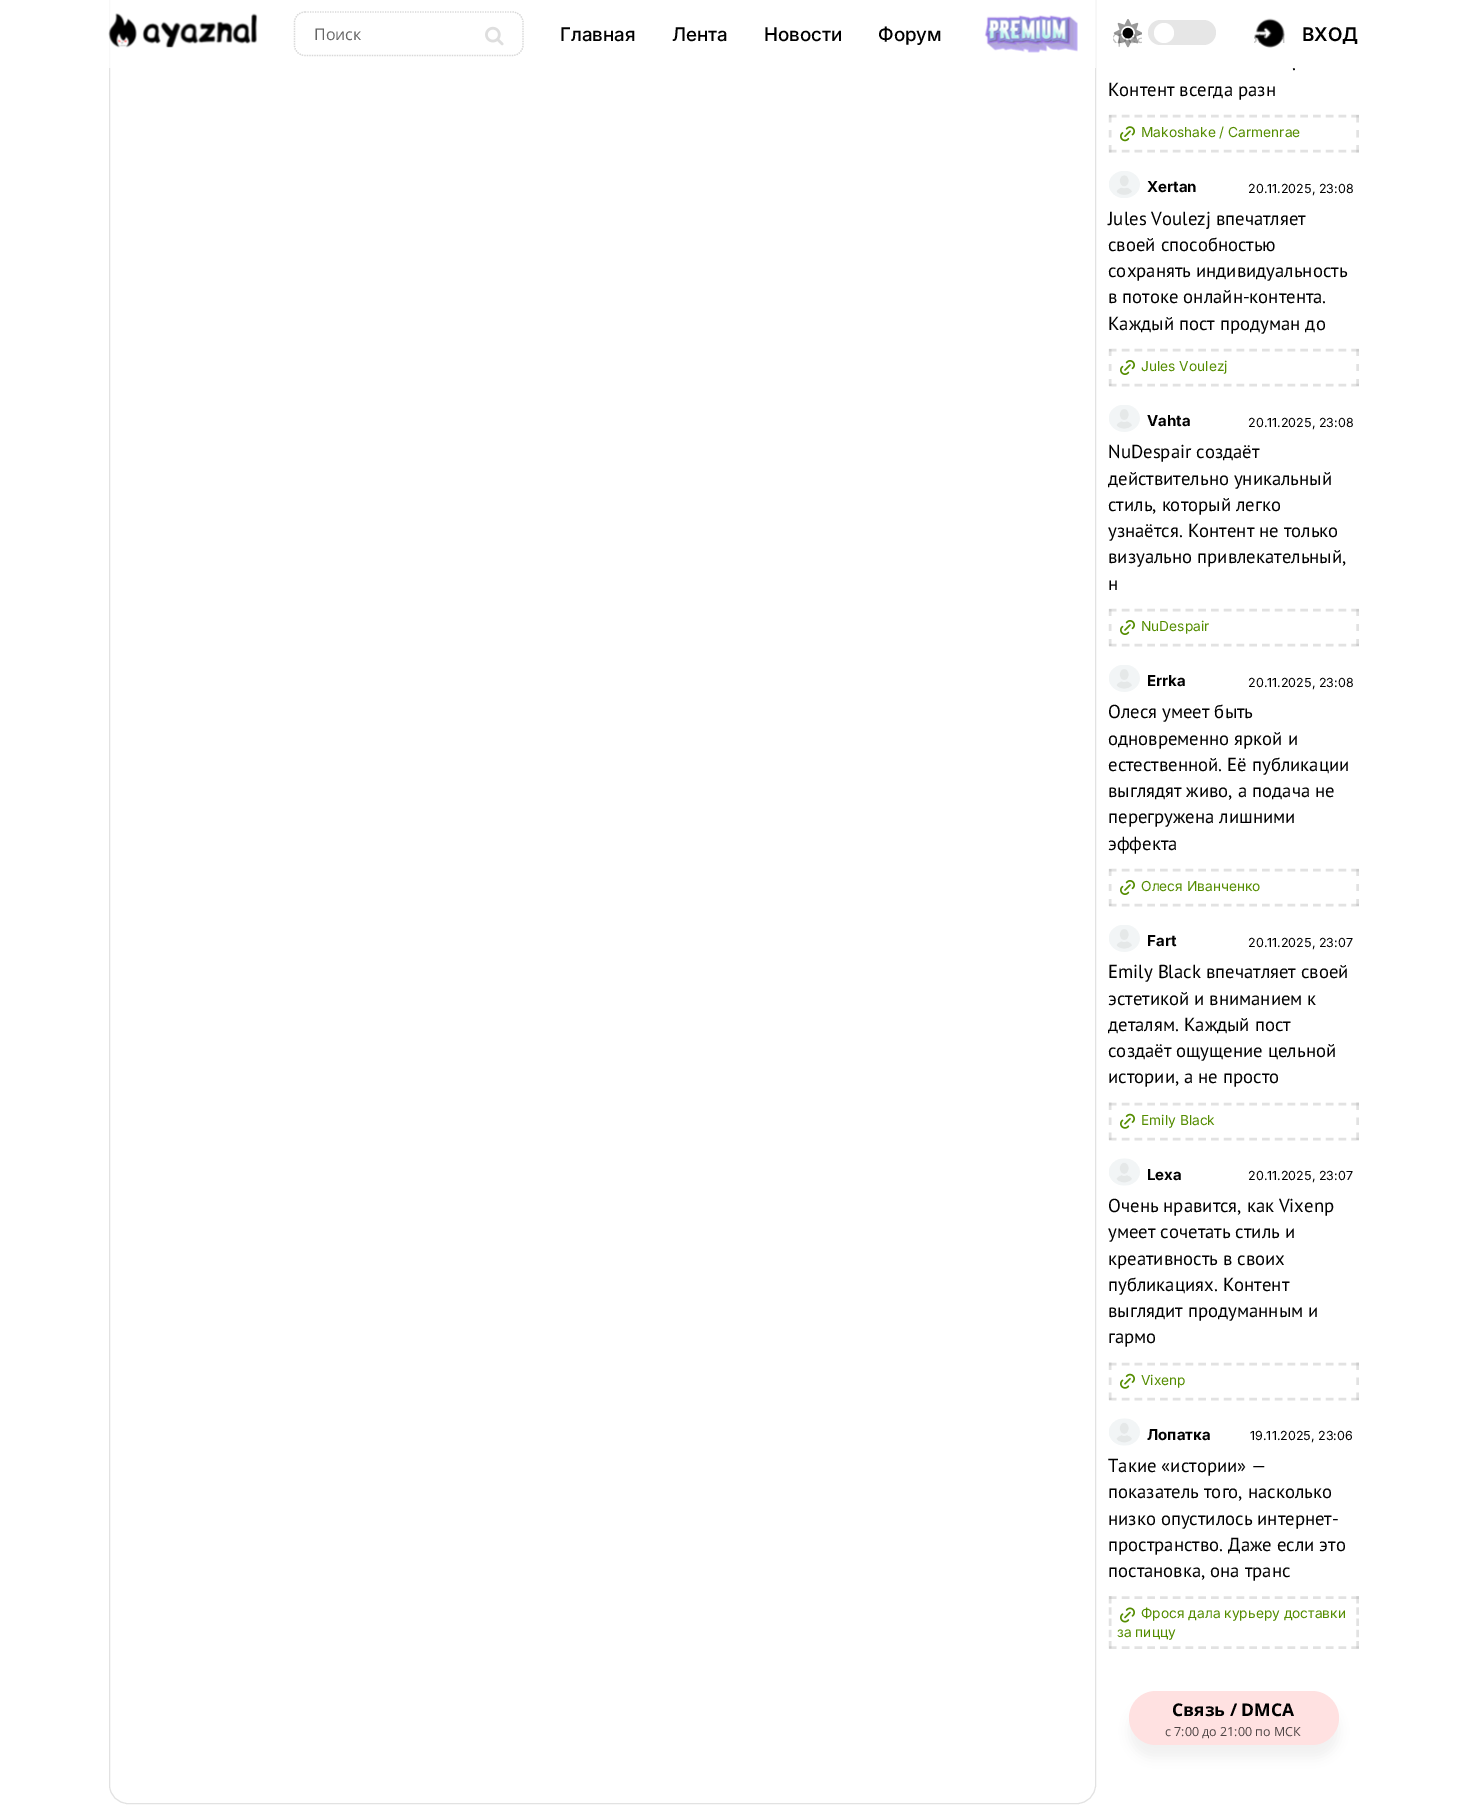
%!PS-Adobe-3.0
%%BoundingBox: 0 0 1466 1808
%%LanguageLevel: 3
%%Pages: 1
%%EndComments
%%BeginProlog
/setink { dup -16 bitshift 255 div exch dup -8 bitshift 255 and 255 div exch 255 and 255 div setrgbcolor } def
/usefont { [ exch dup neg 0 0 3 -1 roll 0 0 ] selectfont } def
/setalpha { dup .setfillconstantalpha .setstrokeconstantalpha } def
/disc { newpath 0 360 arc closepath } def
/rrect { 5 dict begin { /r /h /w /y /x } { exch def } forall
  x r add y moveto x w add y 2 copy h add r arct x w add y h add x 1 index r arct
  x y h add x y r arct x y 2 copy exch w add exch r arct closepath end } def
/softshadow { 12 dict begin { /a /b /q /h /w /y /x } { exch def } forall gsave /was 0 def
  9 -2 -9 { dup b mul 4 div /e exch def 1 sub .425 mul 2.718 exch exp 1 add a .99 .min exch div /now exch def
    1 1 now sub 1 was sub div sub setalpha /was now def
    w h .min e 2 mul add 0 gt { x e sub y e sub w e 2 mul add h e 2 mul add
      q e add b .6 mul add w h .min 2 div e add .min 0 .max rrect fill } if } for grestore end } def
/drawimage { 5 dict begin { /h /w /y /x /name } { exch def } forall
  gsave x y translate w h scale
  w h 8 [w 0 0 h 0 0] name (r) file false 3 colorimage grestore end } def
%%EndProlog
%%BeginSetup
<< /PageSize [1466 1808] /PageUsesTransparency true >> setpagedevice
%%EndSetup
%%Page: 1 1
0 .pushpdf14devicefilter
0 1808 translate 1 -1 scale
4 setmiterlimit
16#FFFFFF setink
0 0 1466 1808 rectfill
16#E2E2E2 setink
109.5 -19.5 986 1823 18.5 rrect stroke
0.76 setalpha
16#FFFFFF setink
109 0 987 68 rectfill
1 setalpha
(img1.raw) 108 13 150 35 drawimage
16#D8D8D8 setink
1.2 setlinewidth
[1.25 1.25] 0 setdash
305 12 moveto 512.5 12 lineto 518.5 12 523 16.5 523 22.5 curveto 523 45 lineto 523 51 518.5 55.5 512.5 55.5 curveto 305 55.5 lineto 299 55.5 294.5 51 294.5 45 curveto 294.5 22.5 lineto 294.5 16.5 299 12 305 12 curveto closepath stroke
/OpenSans-Regular 16 usefont
16#666666 setink
314 40 moveto (Поиск) show
(img2.raw) 485 26 19 20 drawimage
/Inter-Medium 18.75 usefont
16#000000 setink
[
    [(Главная) 560 41]
    [(Лента) 672 41]
    [(Новости) 764 41]
    [(Форум) 878 41]
] { aload pop moveto show } forall
(img3.raw) 984 15 94 38 drawimage
(img5.raw) 1122 27 12 12 drawimage
(img4.raw) 1113 19 29 29 drawimage
0.2 setalpha
16#838383 setink
1148 20 68 25 12.5 rrect fill
1 setalpha
16#FFFFFF setink
1164 33 10 disc fill
(img6.raw) 1254 18 31 30 drawimage
/Inter-SemiBold 18.75 usefont
16#000000 setink
1302 41 moveto (ВХОД) show
/PTSans-Regular 18.75 usefont
1292 70 moveto (.) show
1108 96 moveto (Контент всегда разн) show
16#E2E2E2 setink
2.5 setlinewidth
[7.5 5.26] 0 setdash
1109 116 moveto 1359 116 lineto stroke
0.27 setalpha
16#959595 setink
[] 0 setdash
1357.5 115 moveto 1357.5 122.5 lineto 1357.5 130 moveto 1357.5 137.5 lineto 1357.5 145 moveto 1357.5 152.5 lineto stroke
[7.5 5.26] 0 setdash
1109 151 moveto 1359 151 lineto stroke
[] 0 setdash
1110 115 moveto 1110 122.5 lineto 1110 130 moveto 1110 137.5 lineto 1110 145 moveto 1110 152.5 lineto stroke
1 setalpha
(img7.raw) 1120 126 15 16 drawimage
/Inter-Regular 13.75 usefont
16#548C00 setink
1141 137 moveto (Makoshake / Carmenrae) show
(img8.raw) 1109 171 31 27 drawimage
/Inter-Bold 15 usefont
16#000000 setink
1147 192 moveto (Xertan) show
/Inter-Regular 12.5 usefont
1248 193 moveto (20.11.2025, 23:08) show
/PTSans-Regular 18.75 usefont
[
    [(Jules Voulezj впечатляет) 1108 225]
    [(своей способностью) 1108 251]
    [(сохранять индивидуальность) 1108 277]
    [(в потоке онлайн-контента.) 1108 303]
    [(Каждый пост продуман до) 1108 330]
] { aload pop moveto show } forall
16#E2E2E2 setink
[7.5 5.26] 0 setdash
1109 350 moveto 1359 350 lineto stroke
0.27 setalpha
16#959595 setink
[] 0 setdash
1357.5 349 moveto 1357.5 356 lineto 1357.5 364 moveto 1357.5 371 lineto 1357.5 379 moveto 1357.5 386 lineto stroke
[7.5 5.26] 0 setdash
1109 385 moveto 1359 385 lineto stroke
[] 0 setdash
1110 349 moveto 1110 356 lineto 1110 364 moveto 1110 371 lineto 1110 379 moveto 1110 386 lineto stroke
1 setalpha
(img9.raw) 1120 360 15 15 drawimage
/Inter-Regular 13.75 usefont
16#548C00 setink
1141 371 moveto (Jules Voulezj) show
(img10.raw) 1109 405 31 27 drawimage
/Inter-Bold 15 usefont
16#000000 setink
1147 426 moveto (Vahta) show
/Inter-Regular 12.5 usefont
1248 427 moveto (20.11.2025, 23:08) show
/PTSans-Regular 18.75 usefont
[
    [(NuDespair создаёт) 1108 458]
    [(действительно уникальный) 1108 485]
    [(стиль, который легко) 1108 511]
    [(узнаётся. Контент не только) 1108 537]
    [(визуально привлекательный,) 1108 563]
    [(н) 1108 590]
] { aload pop moveto show } forall
16#E2E2E2 setink
[7.5 5.26] 0 setdash
1109 610 moveto 1359 610 lineto stroke
0.27 setalpha
16#959595 setink
[] 0 setdash
1357.5 609 moveto 1357.5 616 lineto 1357.5 624 moveto 1357.5 631 lineto 1357.5 639 moveto 1357.5 646 lineto stroke
[7.5 5.26] 0 setdash
1109 645 moveto 1359 645 lineto stroke
[] 0 setdash
1110 609 moveto 1110 616 lineto 1110 624 moveto 1110 631 lineto 1110 639 moveto 1110 646 lineto stroke
1 setalpha
(img9.raw) 1120 620 15 15 drawimage
/Inter-Regular 13.75 usefont
16#548C00 setink
1141 631 moveto (NuDespair) show
(img10.raw) 1109 665 31 27 drawimage
/Inter-Bold 15 usefont
16#000000 setink
1147 686 moveto (Errka) show
/Inter-Regular 12.5 usefont
1248 687 moveto (20.11.2025, 23:08) show
/PTSans-Regular 18.75 usefont
[
    [(Олеся умеет быть) 1108 718]
    [(одновременно яркой и) 1108 745]
    [(естественной. Её публикации) 1108 771]
    [(выглядят живо, а подача не) 1108 797]
    [(перегружена лишними) 1108 823]
    [(эффекта) 1108 850]
] { aload pop moveto show } forall
16#E2E2E2 setink
[7.5 5.26] 0 setdash
1109 870 moveto 1359 870 lineto stroke
0.27 setalpha
16#959595 setink
[] 0 setdash
1357.5 869 moveto 1357.5 876 lineto 1357.5 884 moveto 1357.5 891 lineto 1357.5 899 moveto 1357.5 906 lineto stroke
[7.5 5.26] 0 setdash
1109 905 moveto 1359 905 lineto stroke
[] 0 setdash
1110 869 moveto 1110 876 lineto 1110 884 moveto 1110 891 lineto 1110 899 moveto 1110 906 lineto stroke
1 setalpha
(img9.raw) 1120 880 15 15 drawimage
/Inter-Regular 13.75 usefont
16#548C00 setink
1141 891 moveto (Олеся Иванченко) show
(img10.raw) 1109 925 31 27 drawimage
/Inter-Bold 15 usefont
16#000000 setink
1147 946 moveto (Fart) show
/Inter-Regular 12.5 usefont
1248 947 moveto (20.11.2025, 23:07) show
/PTSans-Regular 18.75 usefont
[
    [(Emily Black впечатляет своей) 1108 978]
    [(эстетикой и вниманием к) 1108 1005]
    [(деталям. Каждый пост) 1108 1031]
    [(создаёт ощущение цельной) 1108 1057]
    [(истории, а не просто) 1108 1083]
] { aload pop moveto show } forall
16#E2E2E2 setink
[7.5 5.26] 0 setdash
1109 1104 moveto 1359 1104 lineto stroke
0.27 setalpha
16#959595 setink
[] 0 setdash
1357.5 1102.5 moveto 1357.5 1110 lineto 1357.5 1117.5 moveto 1357.5 1125 lineto 1357.5 1132.5 moveto 1357.5 1140 lineto stroke
[7.5 5.26] 0 setdash
1109 1139 moveto 1359 1139 lineto stroke
[] 0 setdash
1110 1102.5 moveto 1110 1110 lineto 1110 1117.5 moveto 1110 1125 lineto 1110 1132.5 moveto 1110 1140 lineto stroke
1 setalpha
(img11.raw) 1120 1113 15 16 drawimage
/Inter-Regular 13.75 usefont
16#548C00 setink
1141 1125 moveto (Emily Black) show
(img12.raw) 1109 1158 31 28 drawimage
/Inter-Bold 15 usefont
16#000000 setink
1147 1180 moveto (Lexa) show
/Inter-Regular 12.5 usefont
1248 1180 moveto (20.11.2025, 23:07) show
/PTSans-Regular 18.75 usefont
[
    [(Очень нравится, как Vixenp) 1108 1212]
    [(умеет сочетать стиль и) 1108 1238]
    [(креативность в своих) 1108 1265]
    [(публикациях. Контент) 1108 1291]
    [(выглядит продуманным и) 1108 1317]
    [(гармо) 1108 1343]
] { aload pop moveto show } forall
16#E2E2E2 setink
[7.5 5.26] 0 setdash
1109 1364 moveto 1359 1364 lineto stroke
0.27 setalpha
16#959595 setink
[] 0 setdash
1357.5 1362.5 moveto 1357.5 1370 lineto 1357.5 1377.5 moveto 1357.5 1385 lineto 1357.5 1392.5 moveto 1357.5 1400 lineto stroke
[7.5 5.26] 0 setdash
1109 1399 moveto 1359 1399 lineto stroke
[] 0 setdash
1110 1362.5 moveto 1110 1370 lineto 1110 1377.5 moveto 1110 1385 lineto 1110 1392.5 moveto 1110 1400 lineto stroke
1 setalpha
(img11.raw) 1120 1373 15 16 drawimage
/Inter-Regular 13.75 usefont
16#548C00 setink
1141 1385 moveto (Vixenp) show
(img12.raw) 1109 1418 31 28 drawimage
/Inter-Bold 15 usefont
16#000000 setink
1147 1440 moveto (Лопатка) show
/Inter-Regular 12.5 usefont
1250 1440 moveto (19.11.2025, 23:06) show
/PTSans-Regular 18.75 usefont
[
    [(Такие «истории» —) 1108 1472]
    [(показатель того, насколько) 1108 1498]
    [(низко опустилось интернет-) 1108 1525]
    [(пространство. Даже если это) 1108 1551]
    [(постановка, она транс) 1108 1577]
] { aload pop moveto show } forall
16#E2E2E2 setink
[7.5 5.26] 0 setdash
1109 1597.5 moveto 1359 1597.5 lineto stroke
0.27 setalpha
16#959595 setink
[7.5 3.75] 0 setdash
1357.5 1596 moveto 1357.5 1649 lineto stroke
[7.5 5.26] 0 setdash
1109 1647.5 moveto 1359 1647.5 lineto stroke
[7.5 3.75] 0 setdash
1110 1596 moveto 1110 1649 lineto stroke
1 setalpha
(img13.raw) 1120 1607 15 16 drawimage
/Inter-Regular 13.75 usefont
16#548C00 setink
1141 1618 moveto (Фрося дала курьеру доставки) show
1117 1637 moveto (за пиццу) show
16#000000 setink
1129 1704 210 54 27 6 0.05 softshadow
16#FFE1E1 setink
1129 1691 210 54 27 rrect fill
/OpenSans-Bold 17.5 usefont
16#000000 setink
1172 1716 moveto (Связь / DMCA) show
/OpenSans-Regular 12.5 usefont
16#4D4444 setink
1165 1736 moveto (с 7:00 до 21:00 по МСК) show
.poppdf14devicefilter showpage
%%EOF
